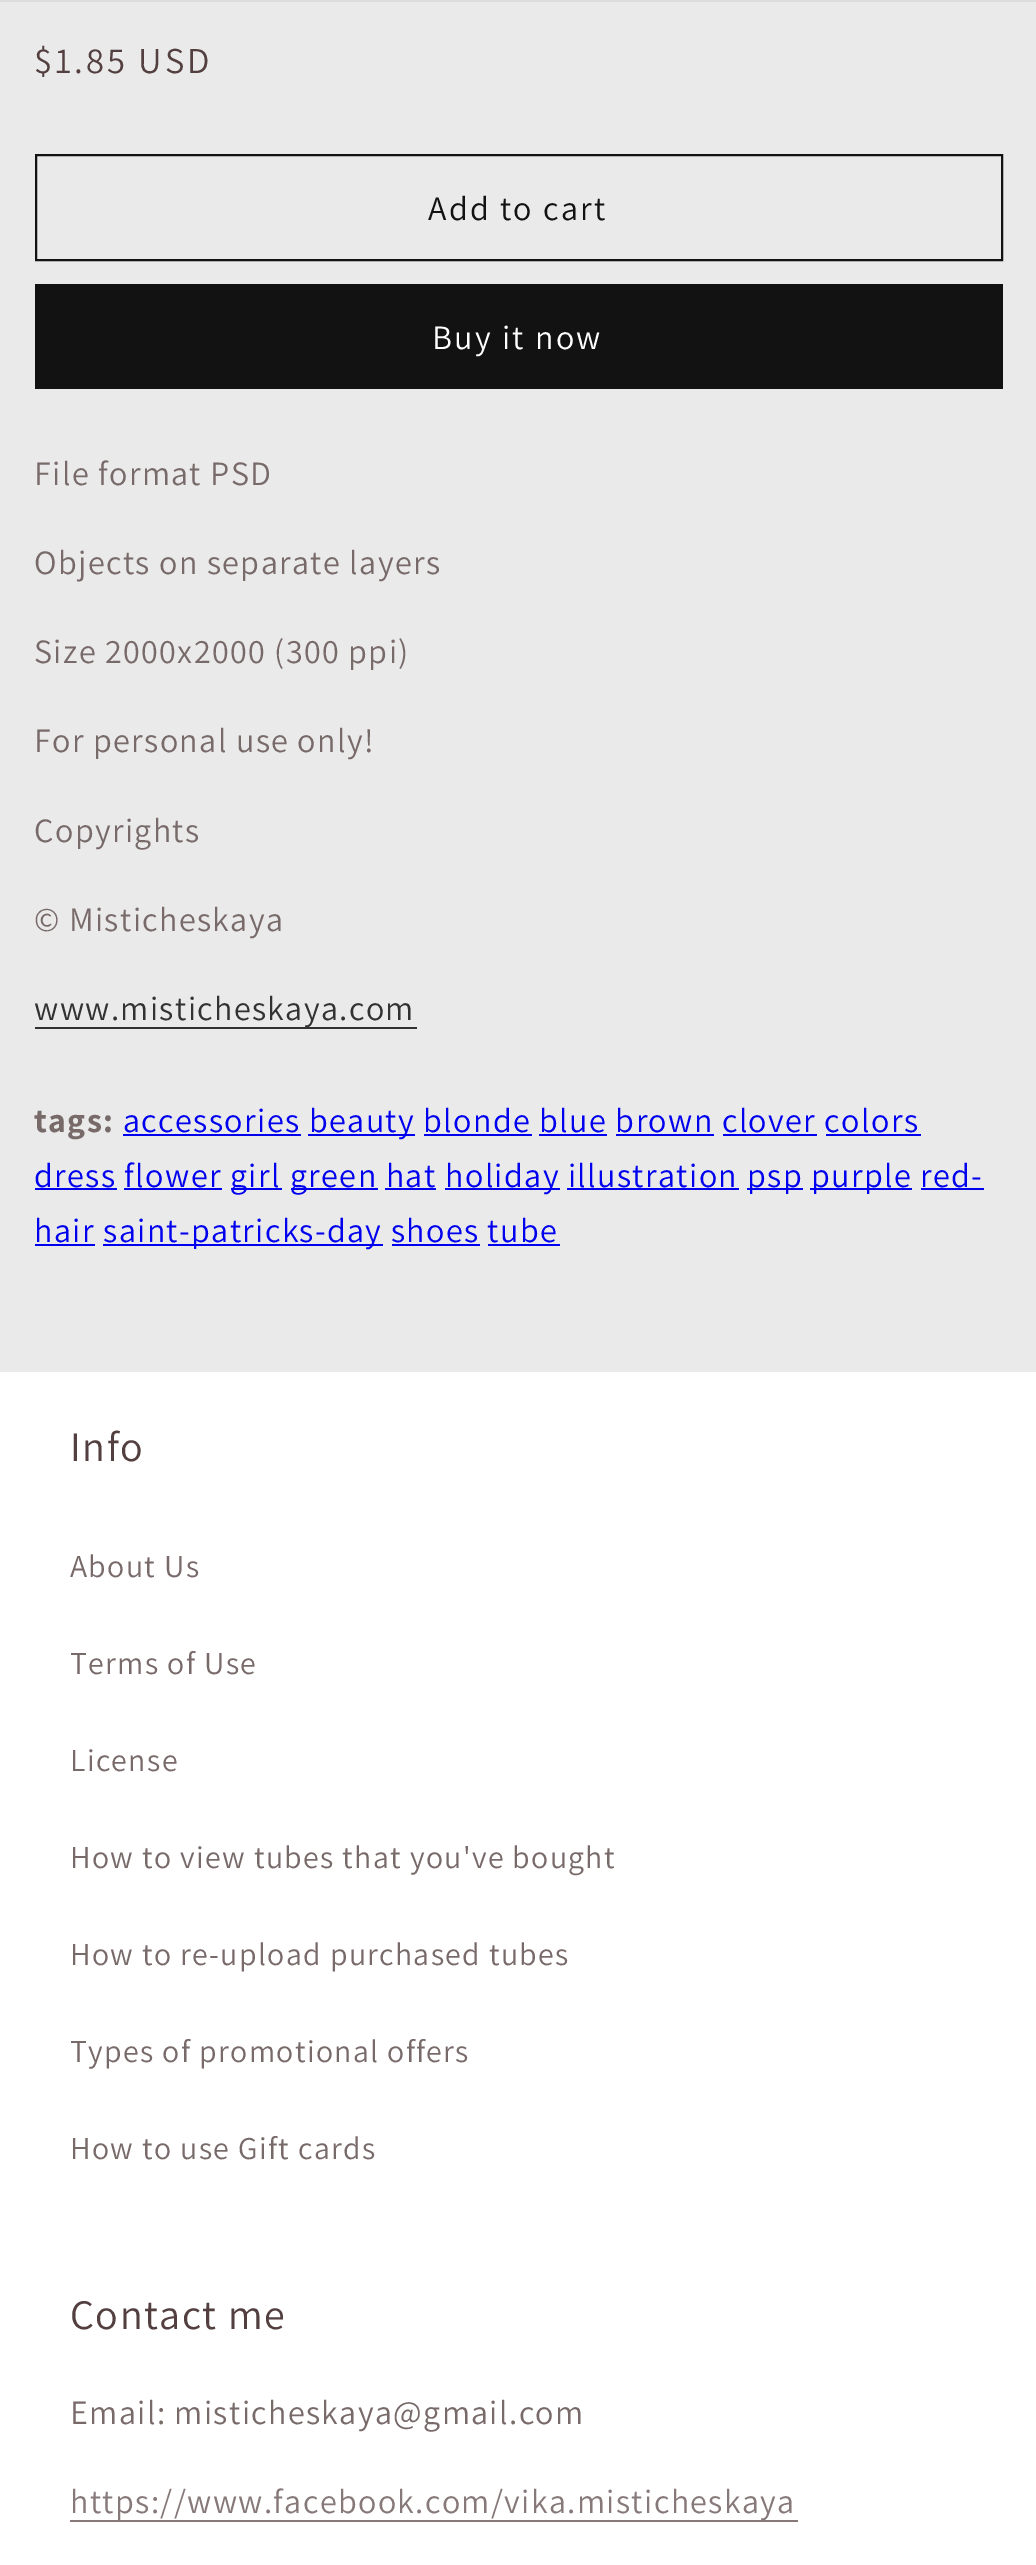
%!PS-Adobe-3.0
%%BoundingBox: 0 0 1036 2565
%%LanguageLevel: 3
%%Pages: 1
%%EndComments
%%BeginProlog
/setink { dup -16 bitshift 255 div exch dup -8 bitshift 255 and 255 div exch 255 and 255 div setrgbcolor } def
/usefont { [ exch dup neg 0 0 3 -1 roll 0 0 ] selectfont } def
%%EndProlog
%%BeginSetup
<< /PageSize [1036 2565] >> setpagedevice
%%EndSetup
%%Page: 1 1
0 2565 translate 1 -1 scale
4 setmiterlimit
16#EAEAEA setink
0 0 1036 2565 rectfill
16#DEDCDC setink
0 0 1036 2 rectfill
/Assistant-Regular 36.5 usefont
16#533F3F setink
34 73 moveto 3 0 ($1.85 USD) ashow
16#121212 setink
2 setlinewidth
36 155 966 105 rectstroke
/Assistant-Regular 34.1 usefont
428 220 moveto 2.25 0 (Add to cart) ashow
35 284 968 105 rectfill
16#FFFFFF setink
432 349 moveto 2.25 0 (Buy it now) ashow
16#796A6A setink
34 485 moveto 1.35 0 (File format PSD) ashow
34 574 moveto 1.35 0 (Objects on separate layers) ashow
34 663 moveto 1.35 0 (Size 2000x2000 \(300 ppi\)) ashow
34 752 moveto 1.35 0 (For personal use only!) ashow
34 842 moveto 1.35 0 (Copyrights) ashow
34 931 moveto 1.35 0 (© Misticheskaya) ashow
16#323232 setink
35 1027 382 2 rectfill
34 1020 moveto 1.35 0 (www.misticheskaya.com) ashow
/Assistant-Bold 34.1 usefont
16#796A6A setink
34 1132 moveto 1.35 0 (tags:) ashow
/Assistant-Regular 34.1 usefont
16#0000EE setink
123 1132 moveto 1.35 0 (accessories) ashow
123 1134 178 2 rectfill
308 1134 107 2 rectfill
309 1132 moveto 1.35 0 (beauty blonde blue brown clover colors) ashow
[
    [424 1134 108 2 16#0000EE]
    [539 1134 68 2 16#0000EE]
    [616 1134 98 2 16#0000EE]
    [723 1134 94 2 16#0000EE]
    [826 1134 95 2 16#0000EE]
] { aload pop setink rectfill } forall
34 1187 moveto 1.35 0 (dress flower) ashow
35 1188 82 2 rectfill
231 1188 51 2 rectfill
230 1187 moveto 1.35 0 (girl) ashow
291 1188 87 2 rectfill
290 1187 moveto 1.35 0 (green hat) ashow
445 1188 115 2 rectfill
445 1187 moveto 1.35 0 (holiday illustration) ashow
747 1188 56 2 rectfill
747 1187 moveto 1.35 0 (psp) ashow
810 1188 102 2 rectfill
811 1187 moveto 1.35 0 (purple red-) ashow
[
    [124 1188 98 2 16#0000EE]
    [385 1188 51 2 16#0000EE]
    [567 1188 172 2 16#0000EE]
] { aload pop setink rectfill } forall
34 1242 moveto 1.35 0 (hair) ashow
[
    [921 1188 63 2 16#0000EE]
    [35 1244 60 2 16#0000EE]
    [103 1244 280 2 16#0000EE]
] { aload pop setink rectfill } forall
103 1242 moveto 1.35 0 (saint-patricks-day shoes tube) ashow
[
    [392 1244 88 2 16#0000EE]
    [488 1244 72 2 16#0000EE]
    [0 1372 1036 1193 16#FFFFFF]
] { aload pop setink rectfill } forall
/Assistant-Regular 42 usefont
16#533F3F setink
70 1461 moveto 1.5 0 (Info) ashow
/Assistant-Regular 31.8 usefont
16#796A6A setink
70 1577 moveto 1.35 0 (About Us) ashow
70 1674 moveto 1.35 0 (Terms of Use) ashow
70 1771 moveto 1.35 0 (License) ashow
70 1868 moveto 1.35 0 (How to view tubes that you've bought) ashow
70 1965 moveto 1.35 0 (How to re-upload purchased tubes) ashow
70 2062 moveto 1.35 0 (Types of promotional offers) ashow
70 2159 moveto 1.35 0 (How to use Gift cards) ashow
/Assistant-Regular 42 usefont
16#533F3F setink
70 2329 moveto 1.5 0 (Contact me) ashow
/Assistant-Regular 34.1 usefont
16#796A6A setink
70 2424 moveto 1.35 0 (Email: misticheskaya@gmail.com) ashow
16#877979 setink
70 2520 728 2 rectfill
70 2513 moveto 1.35 0 (https://www.facebook.com/vika.misticheskaya) ashow
showpage
%%EOF
